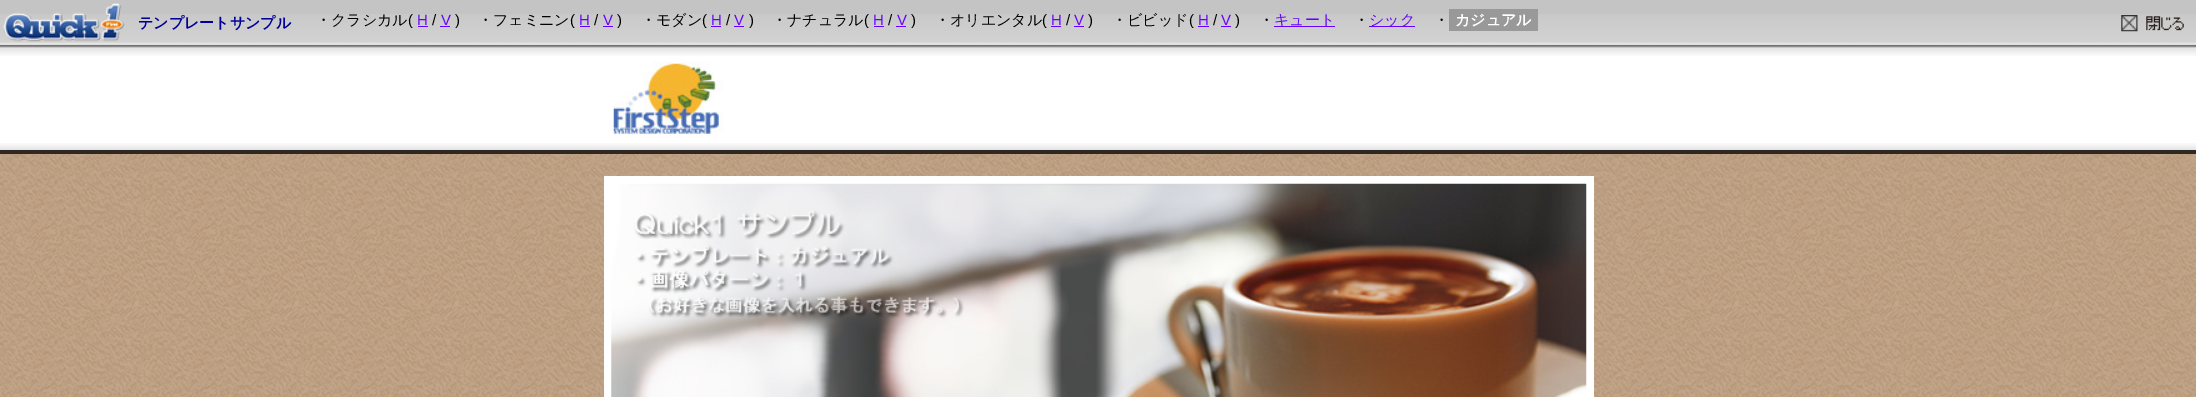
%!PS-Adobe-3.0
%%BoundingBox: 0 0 2196 397
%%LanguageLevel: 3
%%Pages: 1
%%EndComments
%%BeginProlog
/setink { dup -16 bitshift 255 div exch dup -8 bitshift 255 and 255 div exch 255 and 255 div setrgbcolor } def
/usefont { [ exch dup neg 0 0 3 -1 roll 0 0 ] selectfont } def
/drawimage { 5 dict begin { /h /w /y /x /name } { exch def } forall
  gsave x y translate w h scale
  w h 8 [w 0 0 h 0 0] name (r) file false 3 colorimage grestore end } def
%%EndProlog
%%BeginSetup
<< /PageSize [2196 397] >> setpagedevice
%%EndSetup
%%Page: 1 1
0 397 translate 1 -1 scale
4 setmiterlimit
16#C4C4C4 setink
0 0 2196 397 rectfill
(img1.raw) 0 14 2196 34 drawimage
(img2.raw) 3 3 122 39 drawimage
/WenQuanYiZenHei-Bold 15 usefont
16#000099 setink
138 28 moveto (テンプレートサンプル) show
/WenQuanYiZenHei-Medium 15 usefont
16#000000 setink
316 25 moveto (・クラシカル) show
/LiberationSans-Regular 15 usefont
408 25 moveto (\() show
16#6600FF setink
417 25 moveto (H) show
418 26 10 1 rectfill
16#000000 setink
432 25 moveto (/) show
16#6600FF setink
441 25 moveto (V) show
440 26 10 1 rectfill
16#000000 setink
455 25 moveto (\)) show
/WenQuanYiZenHei-Medium 15 usefont
478 25 moveto (・フェミニン) show
/LiberationSans-Regular 15 usefont
570 25 moveto (\() show
16#6600FF setink
579 25 moveto (H) show
580 26 10 1 rectfill
16#000000 setink
594 25 moveto (/) show
16#6600FF setink
603 25 moveto (V) show
603 26 10 1 rectfill
16#000000 setink
617 25 moveto (\)) show
/WenQuanYiZenHei-Medium 15 usefont
641 25 moveto (・モダン) show
/LiberationSans-Regular 15 usefont
702 25 moveto (\() show
16#6600FF setink
711 25 moveto (H) show
711 26 10 1 rectfill
16#000000 setink
726 25 moveto (/) show
16#6600FF setink
734 25 moveto (V) show
734 26 10 1 rectfill
16#000000 setink
749 25 moveto (\)) show
/WenQuanYiZenHei-Medium 15 usefont
772 25 moveto (・ナチュラル) show
/LiberationSans-Regular 15 usefont
864 25 moveto (\() show
16#6600FF setink
873 25 moveto (H) show
874 26 10 1 rectfill
16#000000 setink
888 25 moveto (/) show
16#6600FF setink
897 25 moveto (V) show
896 26 10 1 rectfill
16#000000 setink
911 25 moveto (\)) show
/WenQuanYiZenHei-Medium 15 usefont
935 25 moveto (・オリエンタル) show
/LiberationSans-Regular 15 usefont
1042 25 moveto (\() show
16#6600FF setink
1051 25 moveto (H) show
1051 26 10 1 rectfill
16#000000 setink
1066 25 moveto (/) show
16#6600FF setink
1074 25 moveto (V) show
1074 26 10 1 rectfill
16#000000 setink
1088 25 moveto (\)) show
/WenQuanYiZenHei-Medium 15 usefont
1112 25 moveto (・ビビッド) show
/LiberationSans-Regular 15 usefont
1189 25 moveto (\() show
16#6600FF setink
1198 25 moveto (H) show
1198 26 11 1 rectfill
16#000000 setink
1213 25 moveto (/) show
16#6600FF setink
1221 25 moveto (V) show
1221 26 10 1 rectfill
16#000000 setink
1235 25 moveto (\)) show
/WenQuanYiZenHei-Medium 15 usefont
1259 25 moveto (・) show
16#6600FF setink
1274 26 61 1 rectfill
1274 25 moveto (キュート) show
16#000000 setink
1354 25 moveto (・) show
16#6600FF setink
1369 26 46 1 rectfill
1369 25 moveto (シック) show
16#000000 setink
1434 25 moveto (・) show
16#999999 setink
1449 9 89 22 rectfill
/WenQuanYiZenHei-Bold 15 usefont
16#FFFFFF setink
1455 25 moveto (カジュアル) show
(img3.raw) 2121 15 63 17 drawimage
(img4.raw) 0 47 2196 350 drawimage
0 56 2196 87 rectfill
(img5.raw) 0 47 2196 9 drawimage
(img6.raw) 0 143 2196 7 drawimage
(img7.raw) 613 61 111 75 drawimage
16#2F2722 setink
0 150 2196 4 rectfill
16#FFFFFF setink
604 176 990 221 rectfill
(img8.raw) 611 183 976 214 drawimage
showpage
%%EOF
